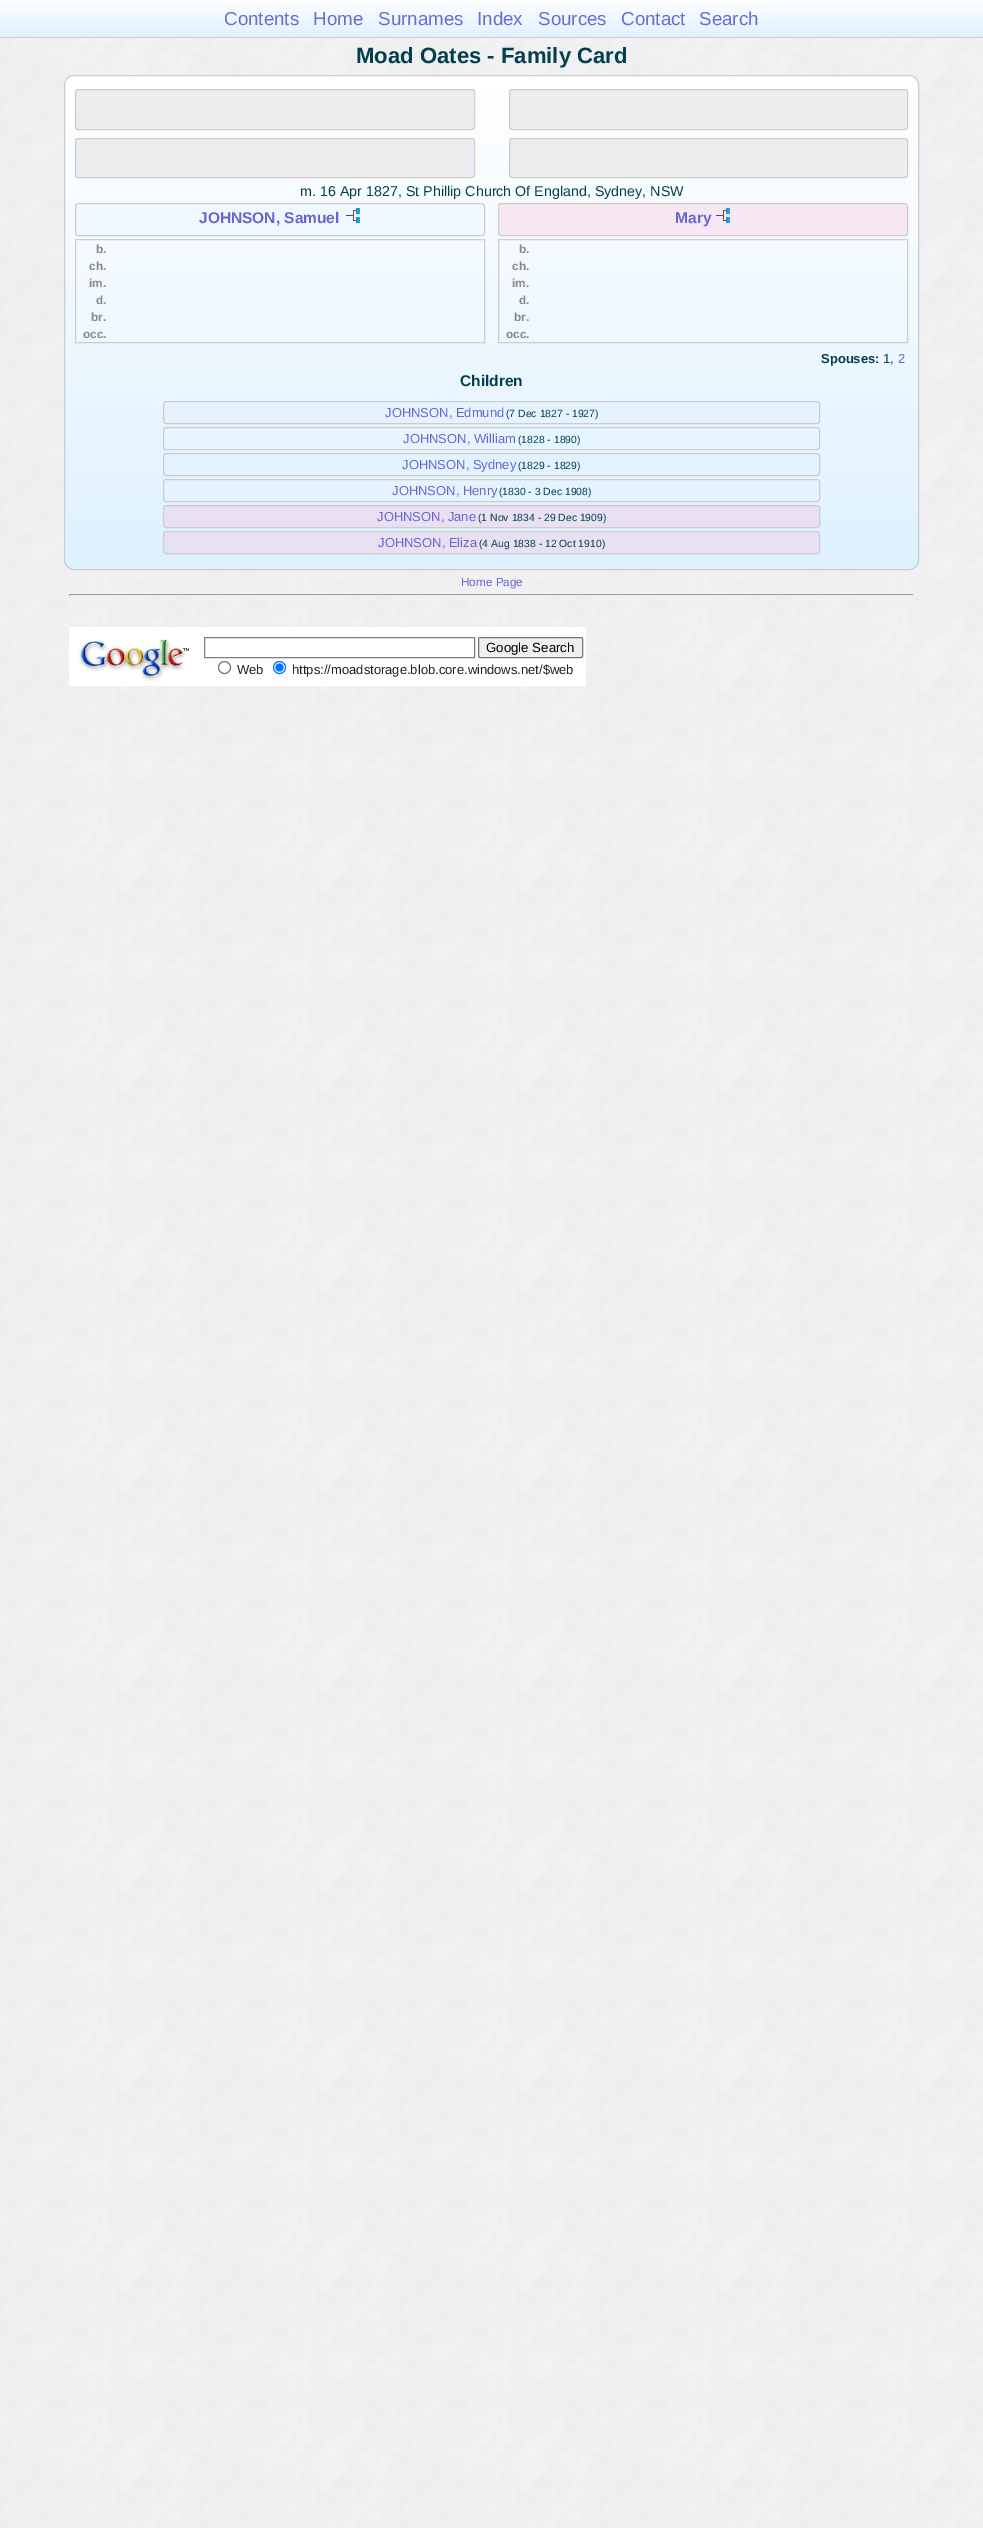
%!PS-Adobe-3.0
%%BoundingBox: 0 0 983 2528
%%LanguageLevel: 3
%%Pages: 1
%%EndComments
%%BeginProlog
/setink { dup -16 bitshift 255 div exch dup -8 bitshift 255 and 255 div exch 255 and 255 div setrgbcolor } def
/usefont { [ exch dup neg 0 0 3 -1 roll 0 0 ] selectfont } def
/setalpha { dup .setfillconstantalpha .setstrokeconstantalpha } def
/disc { newpath 0 360 arc closepath } def
/rrect { 5 dict begin { /r /h /w /y /x } { exch def } forall
  x r add y moveto x w add y 2 copy h add r arct x w add y h add x 1 index r arct
  x y h add x y r arct x y 2 copy exch w add exch r arct closepath end } def
/drawimage { 5 dict begin { /h /w /y /x /name } { exch def } forall
  gsave x y translate w h scale
  w h 8 [w 0 0 h 0 0] name (r) file false 3 colorimage grestore end } def
%%EndProlog
%%BeginSetup
<< /PageSize [983 2528] /PageUsesTransparency true >> setpagedevice
%%EndSetup
%%Page: 1 1
0 .pushpdf14devicefilter
0 2528 translate 1 -1 scale
4 setmiterlimit
16#FFFFFF setink
0 0 983 2528 rectfill
(img1.raw) 0 0 983 2528 drawimage
0.95 setalpha
16#DEF1FF setink
0 0 983 37 rectfill
1 setalpha
(img2.raw) 0 0 983 36 drawimage
0.95 setalpha
0 0 983 35 rectfill
1 setalpha
(img3.raw) 0 0 983 36 drawimage
16#CECECE setink
0 37 983 1 rectfill
/LiberationSans-Regular 18.75 usefont
16#6D6DCF setink
[
    [(Contents) 224 25]
    [(Home) 313 25]
    [(Surnames) 378 25]
    [(Index) 477 25]
    [(Sources) 538 25]
    [(Contact) 621 25]
    [(Search) 699 25]
] { aload pop moveto show } forall
/LiberationSans-Bold 22.1 usefont
16#043F4E setink
356 63 moveto (Moad Oates - Family Card) show
16#DEF1FF setink
64 75 855 495 10 rrect fill
(img4.raw) 64 76 855 494 drawimage
16#CCCCCC setink
64.5 75.5 854 494 9.5 rrect stroke
0.3 setalpha
16#C8C8C8 setink
75.5 89.5 399 40 2.5 rrect fill
1 setalpha
16#CCCCCC setink
75.5 89.5 399 40 2.5 rrect stroke
0.3 setalpha
16#C8C8C8 setink
509.5 89.5 398 40 2.5 rrect fill
1 setalpha
16#CCCCCC setink
509.5 89.5 398 40 2.5 rrect stroke
16#EBEDEF setink
75.5 138.5 399 39 2.5 rrect gsave fill grestore
16#CCCCCC setink
stroke
16#EBEDEF setink
509.5 138.5 398 39 2.5 rrect gsave fill grestore
16#CCCCCC setink
stroke
/LiberationSans-Regular 14.3 usefont
16#043F4E setink
300 196 moveto (m. 16 Apr 1827, St Phillip Church Of England, Sydney, NSW) show
16#EFF7FF setink
75.5 203.5 409 32 2.5 rrect gsave fill grestore
16#CCCCCC setink
stroke
/LiberationSans-Bold 15.5 usefont
16#6666CC setink
199 223 moveto (JOHNSON, Samuel) show
(img5.raw) 346 208 14 15 drawimage
16#F7E7F3 setink
498.5 203.5 409 32 2.5 rrect gsave fill grestore
16#CCCCCC setink
stroke
16#6666CC setink
675 223 moveto (Mary) show
(img6.raw) 716 208 14 15 drawimage
16#CCCCCC setink
75.5 239.5 409 103 rectstroke
/LiberationSans-Bold 11.75 usefont
16#888888 setink
[
    [(b.) 96 253]
    [(ch.) 89 270]
    [(im.) 89 287]
    [(d.) 96 304]
    [(br.) 91 321]
    [(occ.) 83 338]
] { aload pop moveto show } forall
16#CCCCCC setink
498.5 239.5 409 103 rectstroke
16#888888 setink
[
    [(b.) 519 253]
    [(ch.) 512 270]
    [(im.) 512 287]
    [(d.) 519 304]
    [(br.) 514 321]
    [(occ.) 506 338]
] { aload pop moveto show } forall
/LiberationSans-Bold 13 usefont
16#043F4E setink
821 363 moveto (Spouses:) show
/LiberationSans-Regular 13 usefont
883 363 moveto (1,) show
16#6666CC setink
898 363 moveto (2) show
/LiberationSans-Bold 15.5 usefont
16#043F4E setink
460 386 moveto (Children) show
16#E6F3FF setink
163.5 401.5 656 22 2.5 rrect gsave fill grestore
16#CCCCCC setink
stroke
/LiberationSans-Regular 13 usefont
16#6666CC setink
385 417 moveto (JOHNSON, Edmund) show
/LiberationSans-Regular 10.4 usefont
16#043F4E setink
506 417 moveto (\(7 Dec 1827 - 1927\)) show
16#CCCCCC setink
163.5 427.5 656 22 2.5 rrect stroke
/LiberationSans-Regular 13 usefont
16#6666CC setink
403 443 moveto (JOHNSON, William) show
/LiberationSans-Regular 10.4 usefont
16#043F4E setink
518 443 moveto (\(1828 - 1890\)) show
16#E3F2FF setink
163.5 453.5 656 22 2.5 rrect gsave fill grestore
16#CCCCCC setink
stroke
/LiberationSans-Regular 13 usefont
16#6666CC setink
402 469 moveto (JOHNSON, Sydney) show
/LiberationSans-Regular 10.4 usefont
16#043F4E setink
518 469 moveto (\(1829 - 1829\)) show
16#CCCCCC setink
163.5 479.5 656 22 2.5 rrect stroke
/LiberationSans-Regular 13 usefont
16#6666CC setink
392 495 moveto (JOHNSON, Henry) show
/LiberationSans-Regular 10.4 usefont
16#043F4E setink
499 495 moveto (\(1830 - 3 Dec 1908\)) show
16#E9E1F3 setink
163.5 505.5 656 22 2.5 rrect gsave fill grestore
16#CCCCCC setink
stroke
/LiberationSans-Regular 13 usefont
16#6666CC setink
377 521 moveto (JOHNSON, Jane) show
/LiberationSans-Regular 10.4 usefont
16#043F4E setink
478 521 moveto (\(1 Nov 1834 - 29 Dec 1909\)) show
16#E8E0F3 setink
163.5 531.5 656 22 2.5 rrect gsave fill grestore
16#CCCCCC setink
stroke
/LiberationSans-Regular 13 usefont
16#6666CC setink
378 547 moveto (JOHNSON, Eliza) show
/LiberationSans-Regular 10.4 usefont
16#043F4E setink
479 547 moveto (\(4 Aug 1838 - 12 Oct 1910\)) show
/LiberationSans-Regular 11.75 usefont
16#6666CC setink
461 586 moveto (Home Page) show
[
    [69 594 845 1 16#9F9F9F]
    [913 594 1 2 16#EEEEEE]
    [69 595 845 1 16#EEEEEE]
    [69 594 1 2 16#9F9F9F]
    [69 627 517 59 16#FFFFFF]
] { aload pop setink rectfill } forall
(img7.raw) 79 639 110 42 drawimage
16#808080 setink
204.5 637.5 270 20 rectstroke
16#EFEFEF setink
478.5 637.5 104 20 1.5 rrect gsave fill grestore
16#767676 setink
stroke
/LiberationSans-Regular 13.25 usefont
16#000000 setink
486 652 moveto (Google Search) show
16#767676 setink
224.5 667.5 6 disc stroke
/LiberationSans-Regular 13 usefont
16#202020 setink
237 674 moveto (Web) show
16#0075FF setink
279.5 667.5 6 disc stroke
279.5 667.5 4 disc fill
16#202020 setink
292 674 moveto (https://moadstorage.blob.core.windows.net/$web) show
.poppdf14devicefilter showpage
%%EOF
